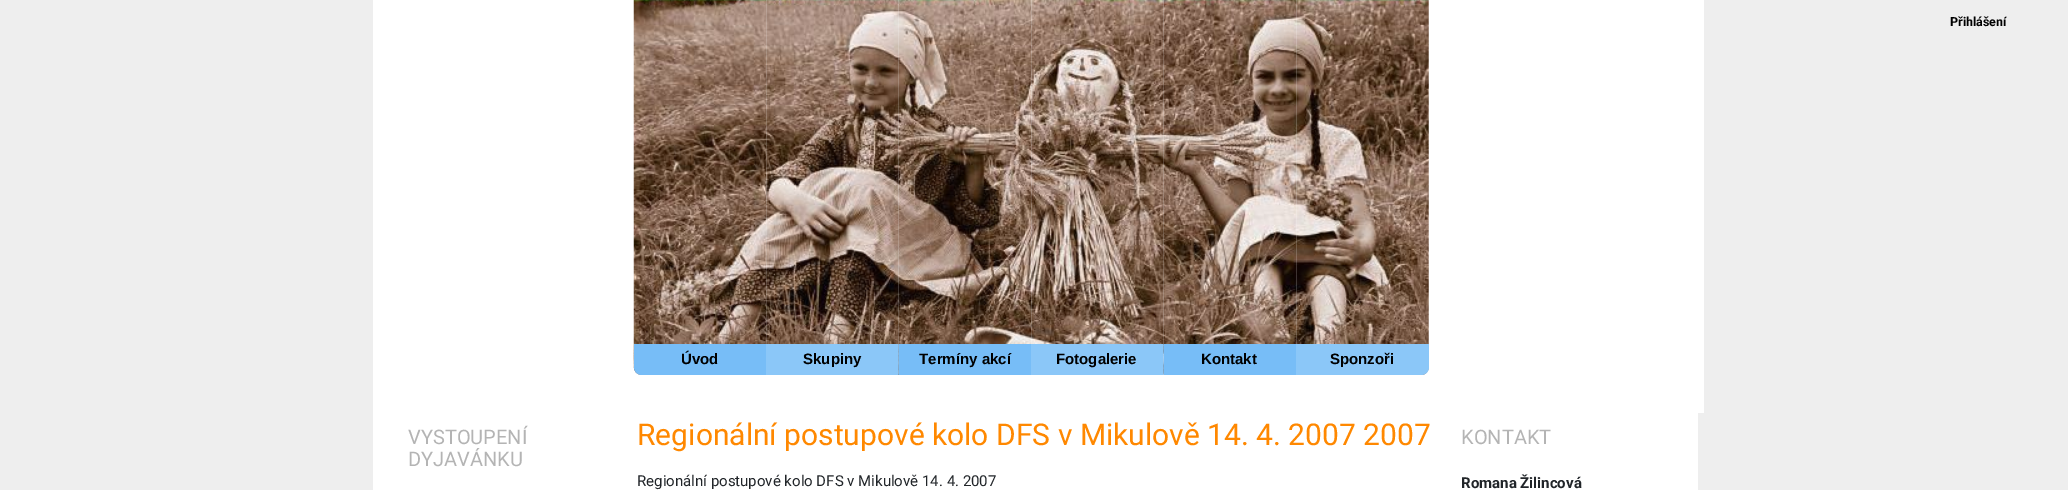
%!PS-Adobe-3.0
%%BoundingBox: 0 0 2068 490
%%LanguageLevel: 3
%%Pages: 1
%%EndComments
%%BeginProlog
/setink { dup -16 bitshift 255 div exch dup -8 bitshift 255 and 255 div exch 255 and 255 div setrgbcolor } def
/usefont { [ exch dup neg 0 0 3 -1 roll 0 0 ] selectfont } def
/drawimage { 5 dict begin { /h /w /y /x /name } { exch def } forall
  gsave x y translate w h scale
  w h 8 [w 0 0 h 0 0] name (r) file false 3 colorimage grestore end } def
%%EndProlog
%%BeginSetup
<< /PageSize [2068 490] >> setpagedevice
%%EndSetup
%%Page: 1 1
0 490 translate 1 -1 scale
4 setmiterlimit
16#EEEEEE setink
0 0 2068 490 rectfill
/Roboto-Bold 12.5 usefont
16#000000 setink
1950 26 moveto (Přihlášení) show
16#FFFFFF setink
373 413 1325 77 rectfill
373 0 1331 413 rectfill
(img1.raw) 633 0 134 375 drawimage
16#77BDF7 setink
634 344 moveto 766 344 lineto 766 375 lineto 642 375 lineto 637.5 375 634 371.5 634 367 curveto closepath fill
/LiberationSans-Bold 15 usefont
16#000000 setink
681 364 moveto (Úvod) show
(img2.raw) 766 0 133 344 drawimage
16#8BC7F8 setink
766 344 133 31 rectfill
16#000000 setink
803 364 moveto (Skupiny) show
(img3.raw) 898 0 134 375 drawimage
16#77BDF7 setink
899 344 132 31 rectfill
16#000000 setink
919 364 moveto (Termíny akcí) show
(img4.raw) 1031 0 133 344 drawimage
16#8BC7F8 setink
1031 344 133 31 rectfill
16#000000 setink
1056 364 moveto (Fotogalerie) show
(img5.raw) 1163 0 134 375 drawimage
16#77BDF7 setink
1164 344 132 31 rectfill
16#000000 setink
1201 364 moveto (Kontakt) show
(img6.raw) 1296 0 133 375 drawimage
16#8BC7F8 setink
1296 344 moveto 1429 344 lineto 1429 367 lineto 1429 371.5 1425.5 375 1421 375 curveto 1296 375 lineto closepath fill
16#000000 setink
1330 364 moveto (Sponzoři) show
/Roboto-Regular 20 usefont
16#B4B4B4 setink
408 444 moveto (VYSTOUPENÍ) show
408 466 moveto (DYJAVÁNKU) show
/Roboto-Regular 30 usefont
16#FF8800 setink
637 445 moveto (Regionální postupové kolo DFS v Mikulově 14. 4. 2007 2007) show
/Roboto-Regular 15 usefont
16#212529 setink
637 486 moveto (Regionální postupové kolo DFS v Mikulově 14. 4. 2007) show
/Roboto-Regular 20 usefont
16#B4B4B4 setink
1461 444 moveto (KONTAKT) show
/Roboto-Bold 15 usefont
16#212529 setink
1461 488 moveto (Romana Žilincová) show
showpage
%%EOF
